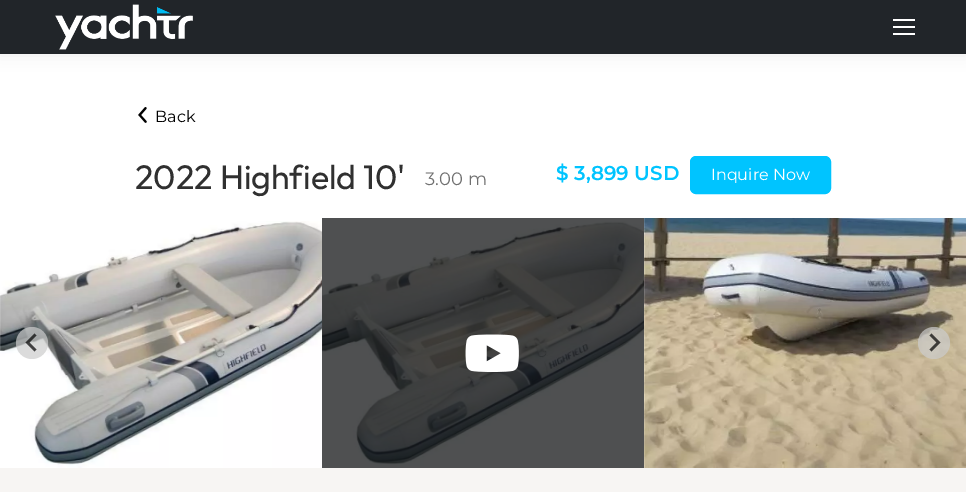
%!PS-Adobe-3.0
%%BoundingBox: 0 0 966 492
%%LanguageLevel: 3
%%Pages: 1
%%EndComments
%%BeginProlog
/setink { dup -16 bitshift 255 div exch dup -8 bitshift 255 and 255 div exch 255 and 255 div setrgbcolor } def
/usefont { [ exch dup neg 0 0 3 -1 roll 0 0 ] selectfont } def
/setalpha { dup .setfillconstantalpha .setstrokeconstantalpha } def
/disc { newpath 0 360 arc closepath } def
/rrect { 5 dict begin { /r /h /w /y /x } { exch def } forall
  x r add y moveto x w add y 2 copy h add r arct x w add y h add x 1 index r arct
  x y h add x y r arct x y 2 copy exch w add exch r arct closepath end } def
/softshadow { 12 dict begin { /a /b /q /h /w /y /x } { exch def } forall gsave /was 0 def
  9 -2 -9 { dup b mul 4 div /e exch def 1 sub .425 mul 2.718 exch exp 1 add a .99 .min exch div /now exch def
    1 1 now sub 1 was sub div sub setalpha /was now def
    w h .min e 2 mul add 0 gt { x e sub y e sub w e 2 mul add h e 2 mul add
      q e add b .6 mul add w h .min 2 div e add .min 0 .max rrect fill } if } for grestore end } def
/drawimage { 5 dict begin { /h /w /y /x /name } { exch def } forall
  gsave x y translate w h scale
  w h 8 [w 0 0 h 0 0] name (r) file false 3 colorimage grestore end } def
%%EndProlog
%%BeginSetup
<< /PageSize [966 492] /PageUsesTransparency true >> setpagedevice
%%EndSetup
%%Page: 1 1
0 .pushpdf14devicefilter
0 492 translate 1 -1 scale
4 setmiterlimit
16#FFFFFF setink
0 0 966 492 rectfill
16#000000 setink
-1 -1 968 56 0 7.5 0.07 softshadow
16#212529 setink
0 0 966 54 rectfill
(img1.raw) 55 4 138 46 drawimage
[
    [893 19 22 2 16#FFFFFF]
    [893 26 22 2 16#FFFFFF]
    [893 33 22 2 16#FFFFFF]
] { aload pop setink rectfill } forall
(img2.raw) 138 107 9 16 drawimage
/Montserrat-Thin 16 usefont
16#000000 setink
155 122 moveto (Back) show
/Outfit-Regular 34 usefont
16#303030 setink
135 189 moveto (2022 Highfield 10') show
/Montserrat-Thin 18 usefont
16#707070 setink
425 185 moveto (3.00 m) show
/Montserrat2-Thin 20 usefont
16#00C4FF setink
556 180 moveto ($ 3,899 USD) show
690.5 156.5 140 37 5.5 rrect gsave fill grestore
stroke
/Montserrat-Thin 16 usefont
16#FFFFFF setink
711 180 moveto (Inquire Now) show
(img3.raw) 0 221 323 247 drawimage
(img5.raw) 322 221 323 247 drawimage
0.75 setalpha
16#141617 setink
322 218 322 250 rectfill
1 setalpha
(img4.raw) 465 334 54 38 drawimage
(img6.raw) 644 218 322 250 drawimage
0.7 setalpha
16#CCCCCC setink
32 343 16 disc fill
16#000000 setink
34.5 333.5 moveto 36.5 335.5 lineto 29.5 342.5 lineto 36.5 349.5 lineto 34.5 351.5 lineto 25.5 342.5 lineto closepath fill
16#CCCCCC setink
934 343 16 disc fill
16#000000 setink
931.5 333.5 moveto 929.5 335.5 lineto 936.5 342.5 lineto 929.5 349.5 lineto 931.5 351.5 lineto 940.5 342.5 lineto closepath fill
1 setalpha
16#F7F5F3 setink
0 468 966 24 rectfill
.poppdf14devicefilter showpage
%%EOF
